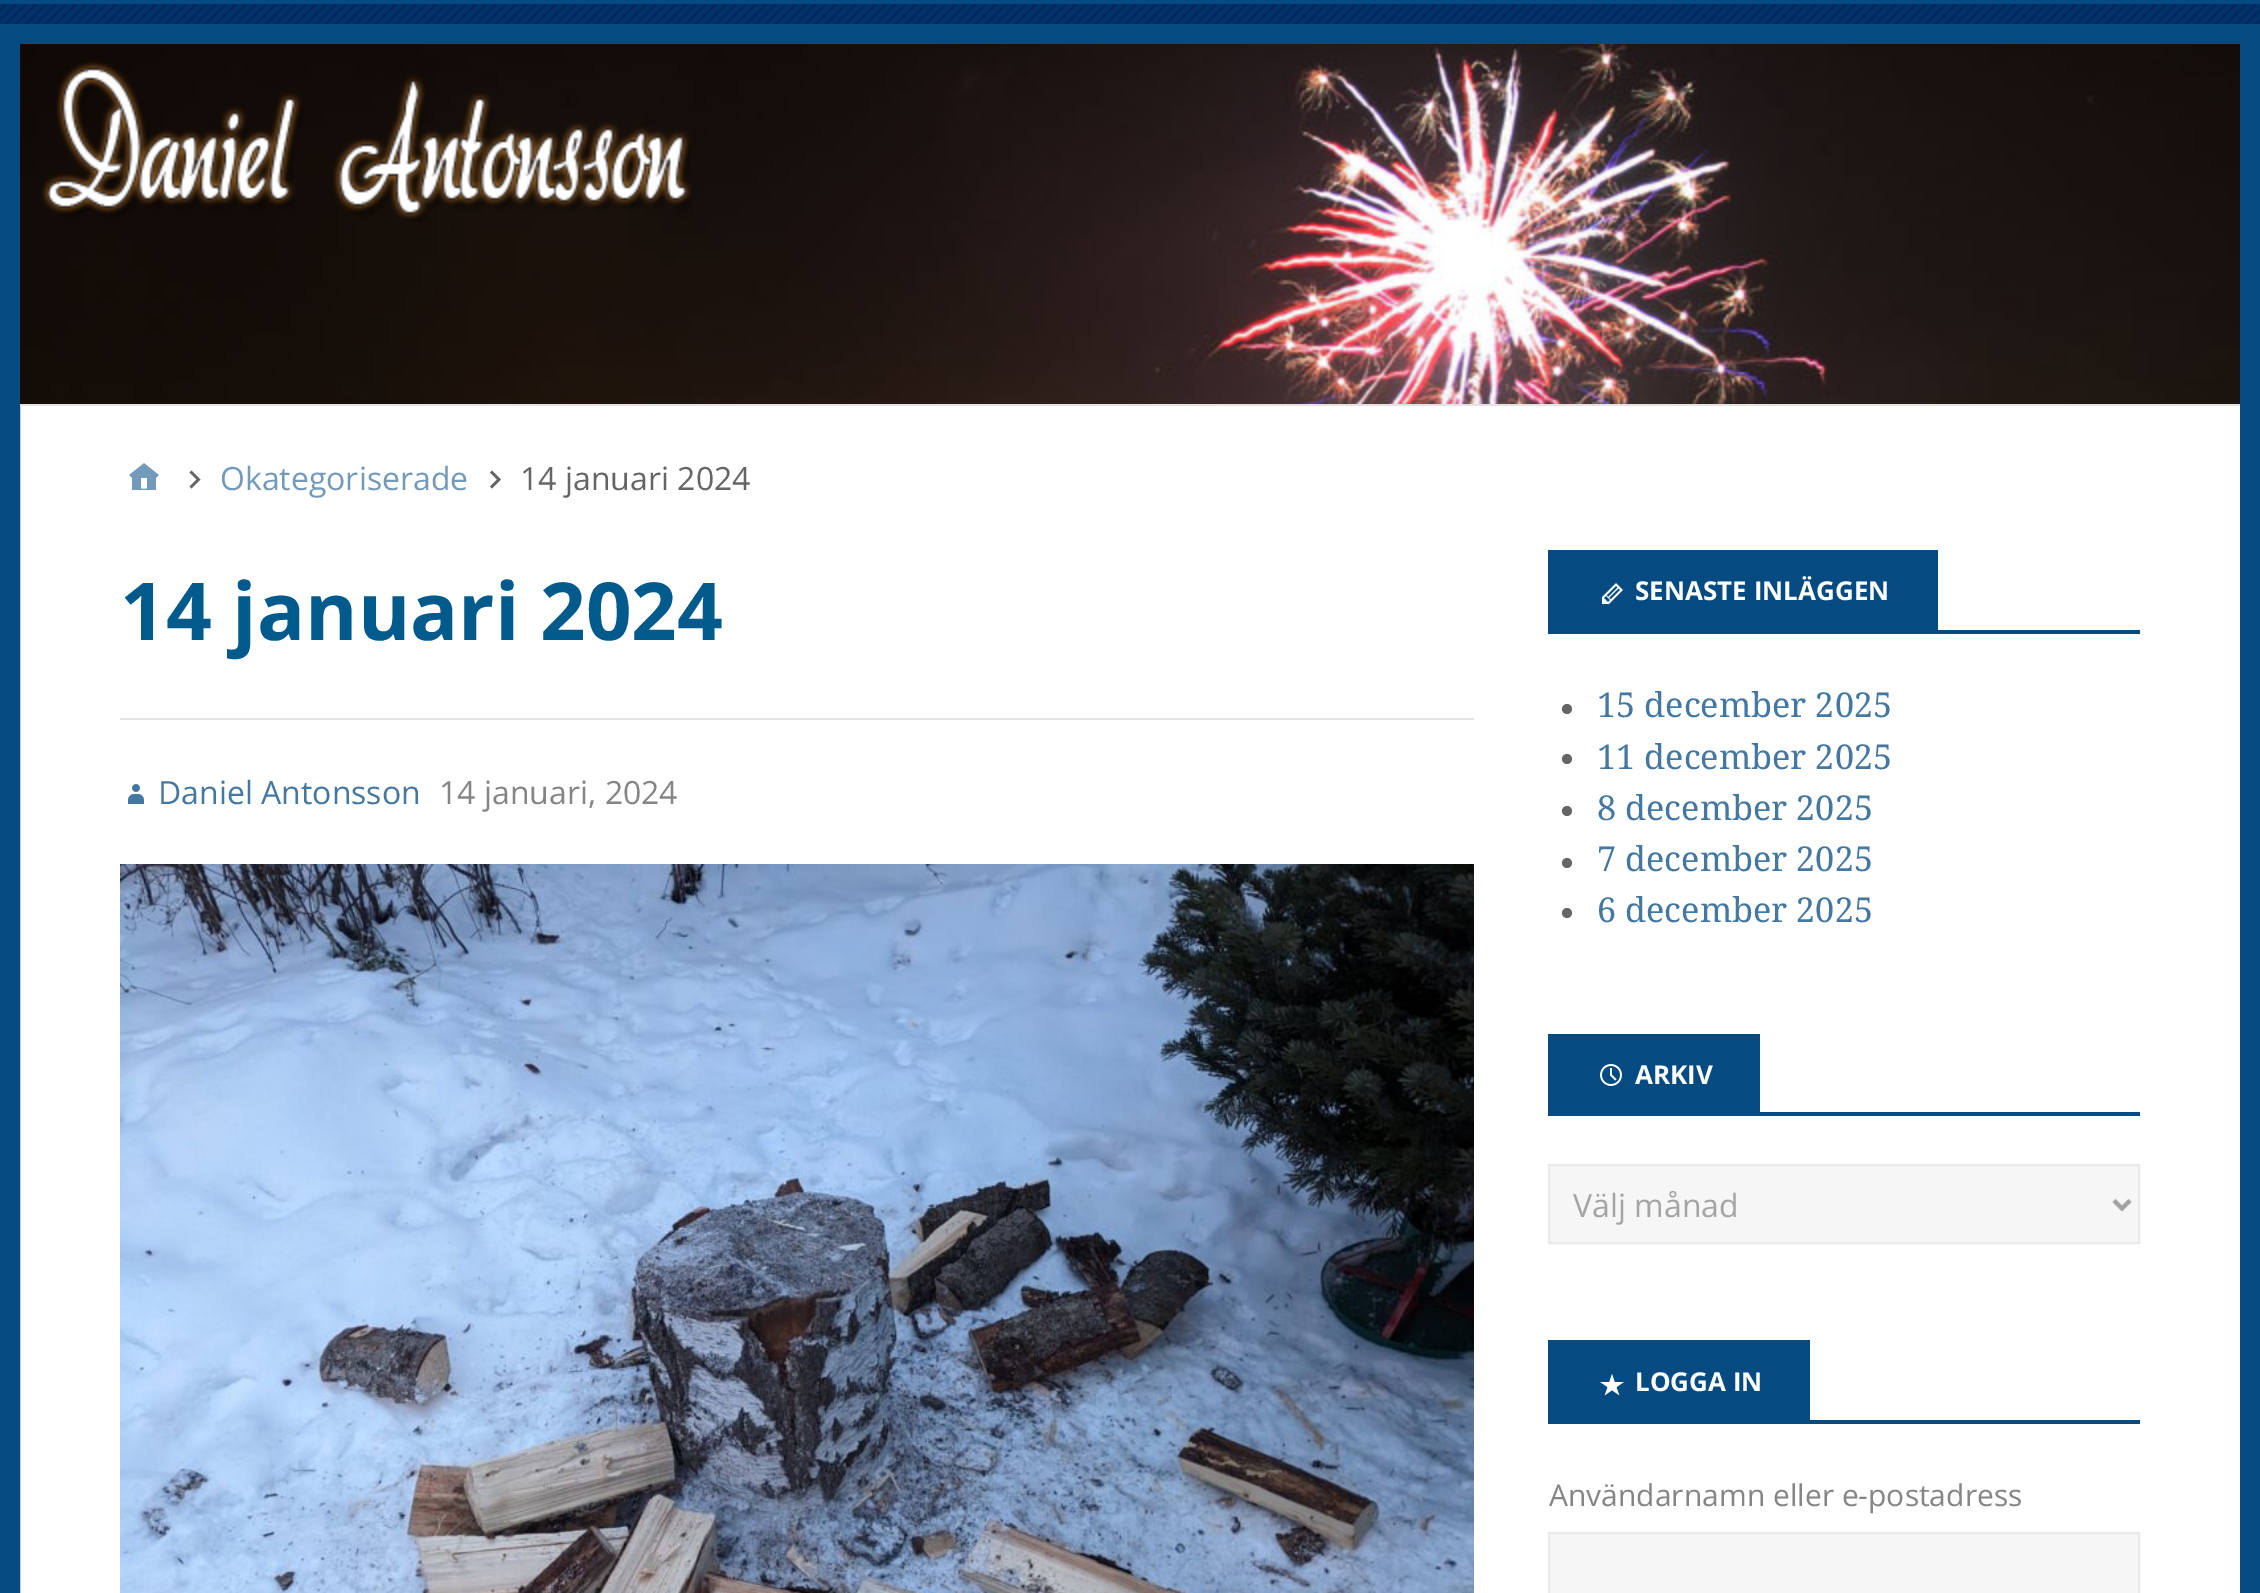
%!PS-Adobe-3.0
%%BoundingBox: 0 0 2260 1593
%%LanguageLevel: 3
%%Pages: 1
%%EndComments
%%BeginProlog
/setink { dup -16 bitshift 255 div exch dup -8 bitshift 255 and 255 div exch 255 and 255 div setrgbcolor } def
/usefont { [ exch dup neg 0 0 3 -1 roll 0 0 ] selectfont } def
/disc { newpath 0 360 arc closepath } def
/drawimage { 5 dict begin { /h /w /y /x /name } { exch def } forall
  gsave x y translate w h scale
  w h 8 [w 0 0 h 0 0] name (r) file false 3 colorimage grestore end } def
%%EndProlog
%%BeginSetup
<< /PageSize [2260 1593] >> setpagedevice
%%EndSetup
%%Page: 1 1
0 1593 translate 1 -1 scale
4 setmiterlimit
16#FFFFFF setink
0 0 2260 1593 rectfill
(img1.raw) 0 4 2260 20 drawimage
16#054B81 setink
0 0 2260 4 rectfill
20 setlinewidth
10 34 2240 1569 rectstroke
(img2.raw) 20 44 2220 360 drawimage
16#E3E3E3 setink
20 404 2220 2 rectfill
(img3.raw) 41 62 651 160 drawimage
(img4.raw) 129 463 30 27 drawimage
16#656565 setink
189.5 472.5 moveto 191.5 470.5 lineto 200.5 479.5 lineto 191.5 488.5 lineto 189.5 486.5 lineto 196.5 479.5 lineto closepath fill
/OpenSans-Regular 32 usefont
16#739AB9 setink
220 490 moveto (Okategoriserade) show
16#656565 setink
490 472.5 moveto 492 470.5 lineto 501 479.5 lineto 492 488.5 lineto 490 486.5 lineto 497 479.5 lineto closepath fill
520 490 moveto (14 januari 2024) show
16#E3E3E3 setink
120 718 1354 2 rectfill
/OpenSans-Bold 80 usefont
16#005A8C setink
120 640 moveto (14 januari 2024) show
(img5.raw) 128 784 16 20 drawimage
/OpenSans-Regular 32 usefont
16#4478A1 setink
158 804 moveto (Daniel Antonsson) show
16#858585 setink
439 804 moveto (14 januari, 2024) show
(img6.raw) 120 864 1354 729 drawimage
16#054B81 setink
1548 630 592 4 rectfill
1548 550 390 80 rectfill
(img7.raw) 1602 583 21 21 drawimage
/OpenSans-Bold 26 usefont
16#FFFFFF setink
1635 600 moveto (SENASTE INLÄGGEN) show
16#656565 setink
1567 709 5 disc fill
/DroidSerif-Regular 34.25 usefont
16#4478A1 setink
1597 717 moveto (15 december 2025) show
16#656565 setink
1567 759 5 disc fill
16#4478A1 setink
1597 769 moveto (11 december 2025) show
16#656565 setink
1567 811 5 disc fill
16#4478A1 setink
1597 820 moveto (8 december 2025) show
16#656565 setink
1567 863 5 disc fill
16#4478A1 setink
1597 871 moveto (7 december 2025) show
16#656565 setink
1567 913 5 disc fill
16#4478A1 setink
1597 922 moveto (6 december 2025) show
16#054B81 setink
1548 1112 592 4 rectfill
1548 1034 212 78 rectfill
(img8.raw) 1600 1064 22 22 drawimage
/OpenSans-Bold 26 usefont
16#FFFFFF setink
1635 1084 moveto (ARKIV) show
16#F6F6F6 setink
1549 1165 moveto 2139 1165 lineto 2139 1243 lineto 1549 1243 lineto closepath gsave fill grestore
16#EAEAEA setink
2 setlinewidth
stroke
16#A4A4A4 setink
4 setlinewidth
2114 1200.5 moveto 2122 1208.5 lineto 2130 1200.5 lineto stroke
/OpenSans-Regular 32 usefont
1573 1217 moveto (Välj månad) show
16#054B81 setink
1548 1420 592 4 rectfill
1548 1340 262 80 rectfill
(img9.raw) 1600 1374 24 22 drawimage
/OpenSans-Bold 26 usefont
16#FFFFFF setink
1635 1391 moveto (LOGGA IN) show
/OpenSans-Regular 30 usefont
16#858585 setink
1549 1506 moveto (Användarnamn eller e-postadress) show
16#F6F6F6 setink
1549 1533 moveto 2139 1533 lineto 2139 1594 lineto 1549 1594 lineto closepath gsave fill grestore
16#EAEAEA setink
2 setlinewidth
stroke
showpage
%%EOF
